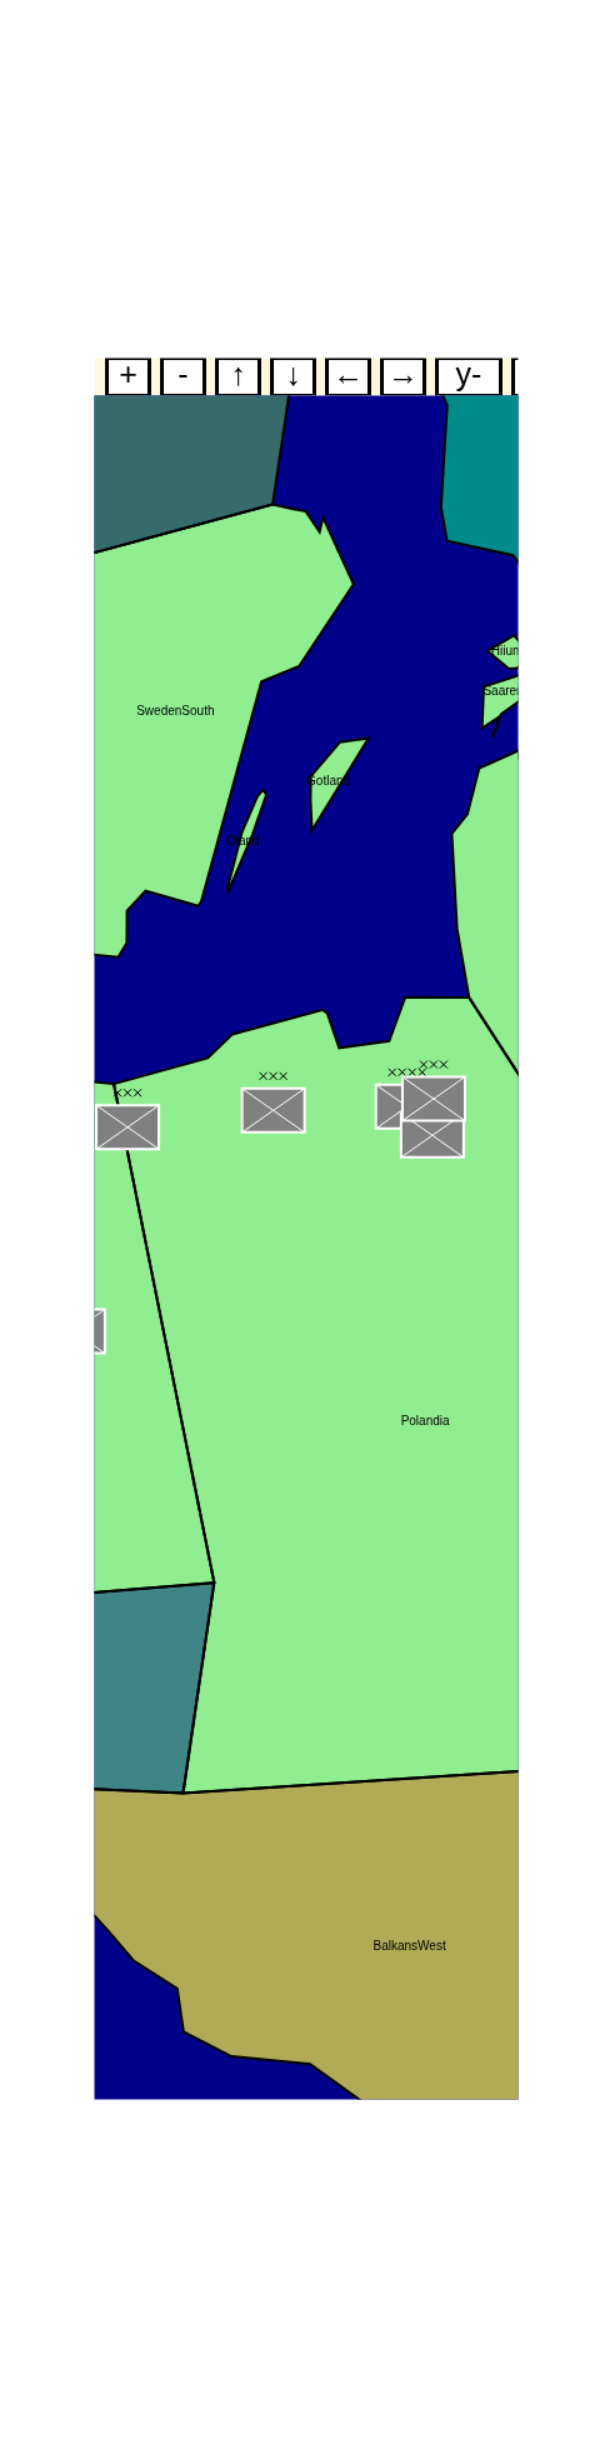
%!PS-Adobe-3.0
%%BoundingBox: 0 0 592 2437
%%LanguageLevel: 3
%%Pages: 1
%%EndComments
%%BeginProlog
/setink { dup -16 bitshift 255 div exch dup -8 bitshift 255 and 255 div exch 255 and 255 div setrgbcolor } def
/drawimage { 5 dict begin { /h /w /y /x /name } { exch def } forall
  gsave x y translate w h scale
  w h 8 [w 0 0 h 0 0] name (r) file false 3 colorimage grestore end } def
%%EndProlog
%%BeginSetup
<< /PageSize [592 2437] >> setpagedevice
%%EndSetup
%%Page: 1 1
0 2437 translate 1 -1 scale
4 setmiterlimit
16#FFFFFF setink
0 0 592 2437 rectfill
(img1.raw) 93 357 426 1744 drawimage
showpage
%%EOF
